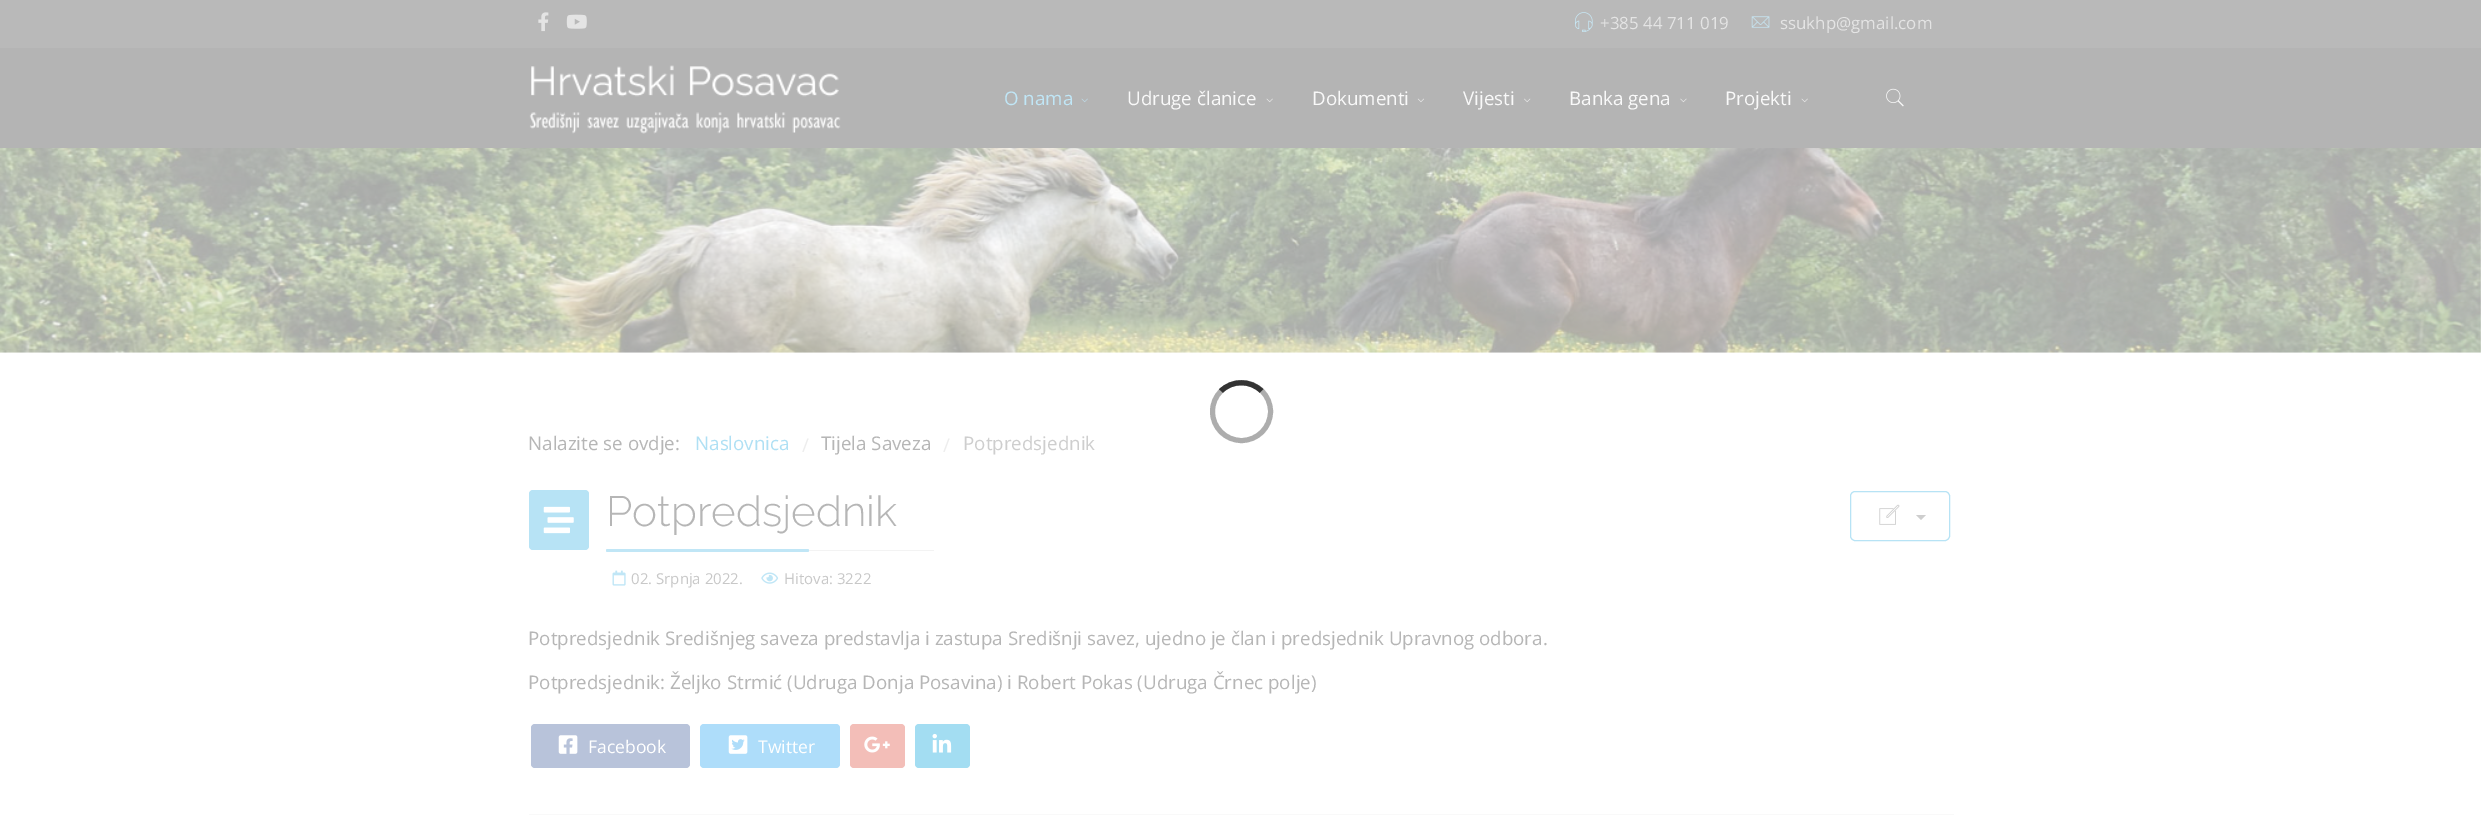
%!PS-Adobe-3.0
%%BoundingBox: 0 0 2481 826
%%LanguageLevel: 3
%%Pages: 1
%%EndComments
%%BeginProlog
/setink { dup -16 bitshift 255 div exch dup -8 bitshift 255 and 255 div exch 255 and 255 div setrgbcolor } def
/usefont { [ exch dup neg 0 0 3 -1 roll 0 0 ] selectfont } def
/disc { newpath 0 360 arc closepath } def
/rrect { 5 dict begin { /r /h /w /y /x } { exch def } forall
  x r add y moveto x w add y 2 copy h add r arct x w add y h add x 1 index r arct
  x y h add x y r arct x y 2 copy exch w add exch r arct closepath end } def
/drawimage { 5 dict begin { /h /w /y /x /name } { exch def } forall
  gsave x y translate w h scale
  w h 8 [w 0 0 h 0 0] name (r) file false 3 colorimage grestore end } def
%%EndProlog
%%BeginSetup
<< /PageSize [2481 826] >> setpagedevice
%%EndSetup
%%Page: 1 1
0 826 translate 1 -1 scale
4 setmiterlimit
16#FFFFFF setink
0 0 2481 826 rectfill
16#B9B9B9 setink
0 0 2481 48 rectfill
(img1.raw) 538 12 11 20 drawimage
(img2.raw) 566 14 21 15 drawimage
(img3.raw) 1575 12 18 20 drawimage
/OpenSans-Regular 16.9 usefont
16#E4E4E4 setink
1600 29 moveto (+385 44 711 019) show
(img4.raw) 1751 16 19 12 drawimage
1780 29 moveto (ssukhp@gmail.com) show
16#B4B4B4 setink
0 48 2481 100 rectfill
(img5.raw) 529 65 312 69 drawimage
/OpenSans-Regular 18.75 usefont
16#C0E6F6 setink
1004 105 moveto (O nama) show
(img6.raw) 1081 98 7 5 drawimage
16#F9F9F9 setink
1127 105 moveto (Udruge članice) show
(img7.raw) 1266 98 7 5 drawimage
1312 105 moveto (Dokumenti) show
(img8.raw) 1417 98 7 5 drawimage
1463 105 moveto (Vijesti) show
(img9.raw) 1524 98 7 5 drawimage
1569 105 moveto (Banka gena) show
(img10.raw) 1680 98 7 5 drawimage
1725 105 moveto (Projekti) show
(img7.raw) 1801 98 7 5 drawimage
(img11.raw) 1886 88 18 19 drawimage
(img12.raw) 0 148 2481 205 drawimage
16#ADADAD setink
5 setlinewidth
1241.5 411.5 29 disc stroke
16#333333 setink
1221 391 moveto 1232 380 1250.5 380 1261.5 391 curveto stroke
16#B6B6B6 setink
528 450 moveto (Nalazite se ovdje:) show
16#AFE0F4 setink
695 450 moveto (Naslovnica) show
16#EDEDED setink
802 452 moveto (/) show
16#B6B6B6 setink
821 450 moveto (Tijela Saveza) show
16#EDEDED setink
943 452 moveto (/) show
16#CECECE setink
963 450 moveto (Potpredsjednik) show
16#B7E3F5 setink
529 490 60 60 4 rrect fill
(img13.raw) 543 506 31 28 drawimage
16#F3F3F3 setink
606 550 328 1 rectfill
/Raleway-Light 42.25 usefont
16#B6B6B6 setink
606 526 moveto (Potpredsjednik) show
16#C0E6F6 setink
606 549 203 3 1.5 rrect fill
16#B7E3F5 setink
1 setlinewidth
1850.5 491.5 99 49 4.5 rrect stroke
(img14.raw) 1879 504 21 21 drawimage
16#CECECE setink
1916 515 moveto 1926 515 lineto 1921 520 lineto closepath fill
(img15.raw) 612 570 14 16 drawimage
/OpenSans-Regular 15 usefont
16#C8C8C8 setink
631 584 moveto (02. Srpnja 2022.) show
(img16.raw) 761 572 18 12 drawimage
784 584 moveto (Hitova: 3222) show
/OpenSans-Regular 18.75 usefont
16#B6B6B6 setink
528 645 moveto (Potpredsjednik Središnjeg saveza predstavlja i zastupa Središnji savez, ujedno je član i predsjednik Upravnog odbora.) show
528 689 moveto (Potpredsjednik: Željko Strmić \(Udruga Donja Posavina\) i Robert Pokas \(Udruga Črnec polje\)) show
16#B8C3DA setink
531 724 159 44 4 rrect fill
(img17.raw) 558 735 20 19 drawimage
/OpenSans-Regular 17.5 usefont
16#FFFFFF setink
588 753 moveto (Facebook) show
16#AEDDFA setink
700 724 140 44 4 rrect fill
(img18.raw) 728 735 20 19 drawimage
16#FFFFFF setink
758 753 moveto (Twitter) show
16#F3BEB8 setink
850 724 55 44 4 rrect fill
(img19.raw) 864 736 26 17 drawimage
16#A3DDF2 setink
915 724 55 44 4 rrect fill
(img20.raw) 932 733 20 20 drawimage
16#F9F9F9 setink
529 814 1425 1 rectfill
showpage
%%EOF
